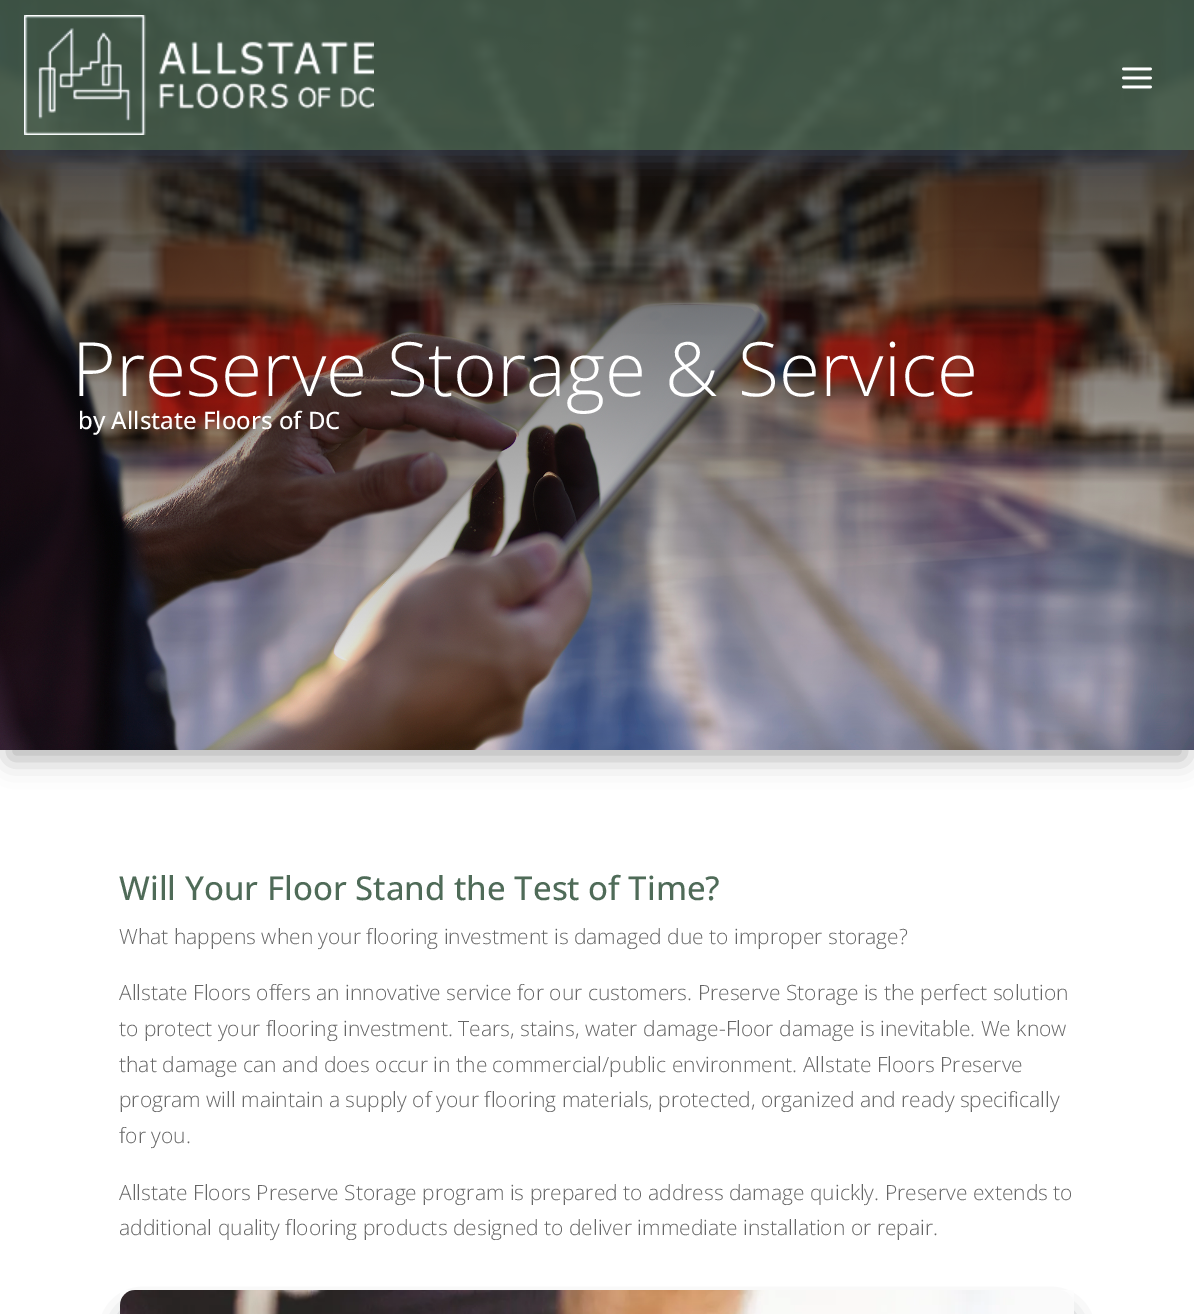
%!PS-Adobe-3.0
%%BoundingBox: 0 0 1194 1314
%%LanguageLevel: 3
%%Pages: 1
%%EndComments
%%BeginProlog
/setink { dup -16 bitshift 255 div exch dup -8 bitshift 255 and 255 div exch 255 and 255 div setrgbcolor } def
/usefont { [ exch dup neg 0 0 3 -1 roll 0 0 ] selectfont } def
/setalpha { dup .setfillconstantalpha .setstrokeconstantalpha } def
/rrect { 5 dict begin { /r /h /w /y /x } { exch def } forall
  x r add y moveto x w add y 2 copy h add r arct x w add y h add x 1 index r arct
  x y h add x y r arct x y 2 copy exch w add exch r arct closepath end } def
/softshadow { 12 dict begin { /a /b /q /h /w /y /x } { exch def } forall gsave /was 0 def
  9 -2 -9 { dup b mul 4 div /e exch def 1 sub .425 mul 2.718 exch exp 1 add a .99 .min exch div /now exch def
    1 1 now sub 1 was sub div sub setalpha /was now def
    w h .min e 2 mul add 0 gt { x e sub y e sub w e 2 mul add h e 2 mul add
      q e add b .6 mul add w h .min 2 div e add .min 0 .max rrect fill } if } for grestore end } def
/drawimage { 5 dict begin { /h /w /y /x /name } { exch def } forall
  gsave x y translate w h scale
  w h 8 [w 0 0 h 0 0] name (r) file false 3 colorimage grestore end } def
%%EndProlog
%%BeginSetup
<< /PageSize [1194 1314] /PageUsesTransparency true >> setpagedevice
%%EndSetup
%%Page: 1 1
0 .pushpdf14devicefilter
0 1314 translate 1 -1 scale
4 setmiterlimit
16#FFFFFF setink
0 0 1194 1314 rectfill
16#000000 setink
9 27 1176 732 0 13.5 0.3 softshadow
(img3.raw) 0 0 1194 750 drawimage
gsave
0 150 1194 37 rectclip
16#333A49 setink
9 27 1176 132 0 13.5 1 softshadow
grestore
0.75 setalpha
16#4F6B58 setink
0 0 1194 150 rectfill
1 setalpha
(img1.raw) 24 15 350 120 drawimage
(img2.raw) 1122 67 30 22 drawimage
/OpenSans-Light 75 usefont
16#FFFFFF setink
72 396 moveto (Preserve Storage & Service) show
/OpenSans-Medium 24 usefont
78 429 moveto (by Allstate Floors of DC) show
/OpenSans-Medium 33 usefont
16#4F6B58 setink
119 900 moveto (Will Your Floor Stand the Test of Time?) show
/OpenSans-Light 21 usefont
16#666666 setink
[
    [(What happens when your flooring investment is damaged due to improper storage?) 119 944]
    [(Allstate Floors offers an innovative service for our customers. Preserve Storage is the perfect solution) 119 1000]
    [(to protect your flooring investment. Tears, stains, water damage-Floor damage is inevitable. We know) 119 1036]
    [(that damage can and does occur in the commercial/public environment. Allstate Floors Preserve) 119 1072]
    [(program will maintain a supply of your flooring materials, protected, organized and ready specifically) 119 1107]
    [(for you.) 119 1143]
    [(Allstate Floors Preserve Storage program is prepared to address damage quickly. Preserve extends to) 119 1200]
    [(additional quality flooring products designed to deliver immediate installation or repair.) 119 1235]
] { aload pop moveto show } forall
16#333A49 setink
129 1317 936 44 6 13.5 1 softshadow
(img4.raw) 120 1290 954 24 drawimage
.poppdf14devicefilter showpage
%%EOF
